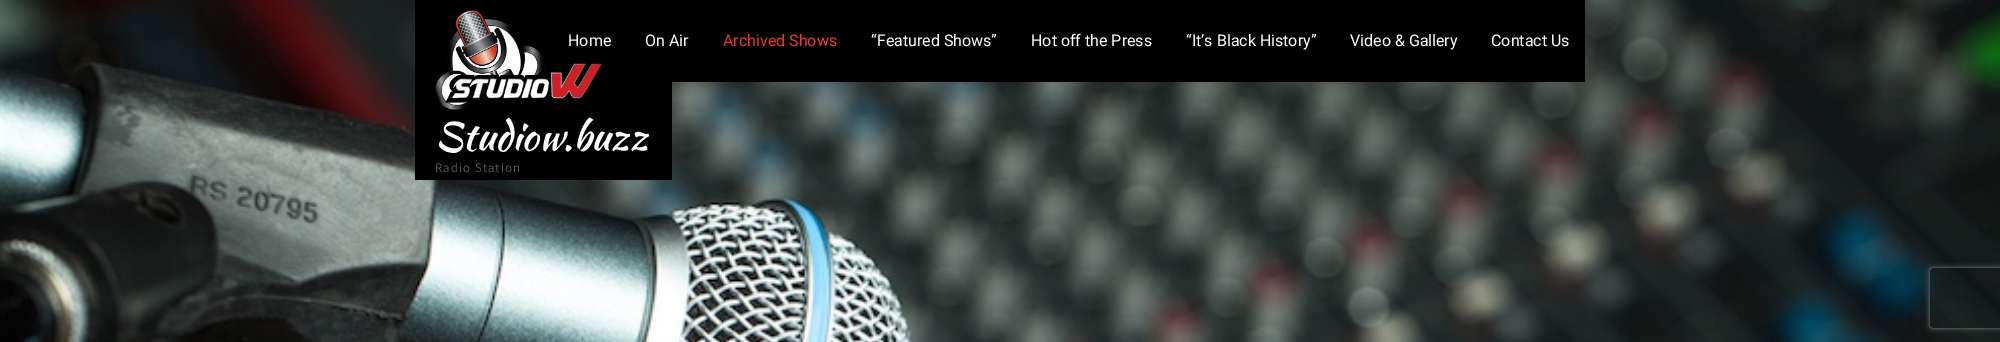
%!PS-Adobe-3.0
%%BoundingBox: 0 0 2000 342
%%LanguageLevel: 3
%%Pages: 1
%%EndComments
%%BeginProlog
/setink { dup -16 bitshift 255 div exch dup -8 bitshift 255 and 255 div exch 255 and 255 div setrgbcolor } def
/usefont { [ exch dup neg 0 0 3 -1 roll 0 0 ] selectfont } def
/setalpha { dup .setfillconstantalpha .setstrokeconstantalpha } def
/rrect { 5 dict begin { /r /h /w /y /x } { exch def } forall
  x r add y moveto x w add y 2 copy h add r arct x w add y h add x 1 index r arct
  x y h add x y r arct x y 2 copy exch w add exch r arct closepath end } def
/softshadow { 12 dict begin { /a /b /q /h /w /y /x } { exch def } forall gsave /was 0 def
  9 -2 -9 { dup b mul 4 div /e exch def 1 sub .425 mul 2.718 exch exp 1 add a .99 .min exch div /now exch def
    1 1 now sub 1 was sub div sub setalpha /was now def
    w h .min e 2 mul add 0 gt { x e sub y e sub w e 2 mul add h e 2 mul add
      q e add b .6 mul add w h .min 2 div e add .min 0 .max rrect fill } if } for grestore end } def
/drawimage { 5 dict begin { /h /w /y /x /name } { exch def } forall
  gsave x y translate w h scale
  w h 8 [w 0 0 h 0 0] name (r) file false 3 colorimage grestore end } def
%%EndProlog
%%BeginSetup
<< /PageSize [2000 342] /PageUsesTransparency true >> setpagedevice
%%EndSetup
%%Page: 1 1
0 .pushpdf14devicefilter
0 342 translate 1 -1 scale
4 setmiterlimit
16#FFFFFF setink
0 0 2000 342 rectfill
(img1.raw) 0 0 2000 342 drawimage
16#000000 setink
672 0 913 82 rectfill
415 0 257 180 rectfill
(img2.raw) 435 10 167 100 drawimage
/Roboto-Regular 16 usefont
16#FFFFFF setink
568 46 moveto (Home) show
645 46 moveto (On Air) show
16#EA3838 setink
723 46 moveto (Archived Shows) show
16#FFFFFF setink
[
    [(“Featured Shows”) 871 46]
    [(Hot off the Press) 1031 46]
    [(“It’s Black History”) 1186 46]
    [(Video & Gallery) 1350 46]
    [(Contact Us) 1491 46]
] { aload pop moveto show } forall
/KaushanScript-Regular 39 usefont
435 150 moveto (Studiow.buzz) show
/Assistant-Regular 13 usefont
16#5D5D5D setink
435 172 moveto 1 0 (Radio Station) ashow
gsave
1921 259 moveto 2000 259 lineto 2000 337 lineto 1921 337 lineto closepath 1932 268 moveto 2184 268 lineto 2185 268 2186 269 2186 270 curveto 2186 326 lineto 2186 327 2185 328 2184 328 curveto 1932 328 lineto 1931 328 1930 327 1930 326 curveto 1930 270 lineto 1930 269 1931 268 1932 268 curveto closepath eoclip newpath
16#808080 setink
1930 268 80 60 2 2.5 1 softshadow
grestore
.poppdf14devicefilter showpage
%%EOF
